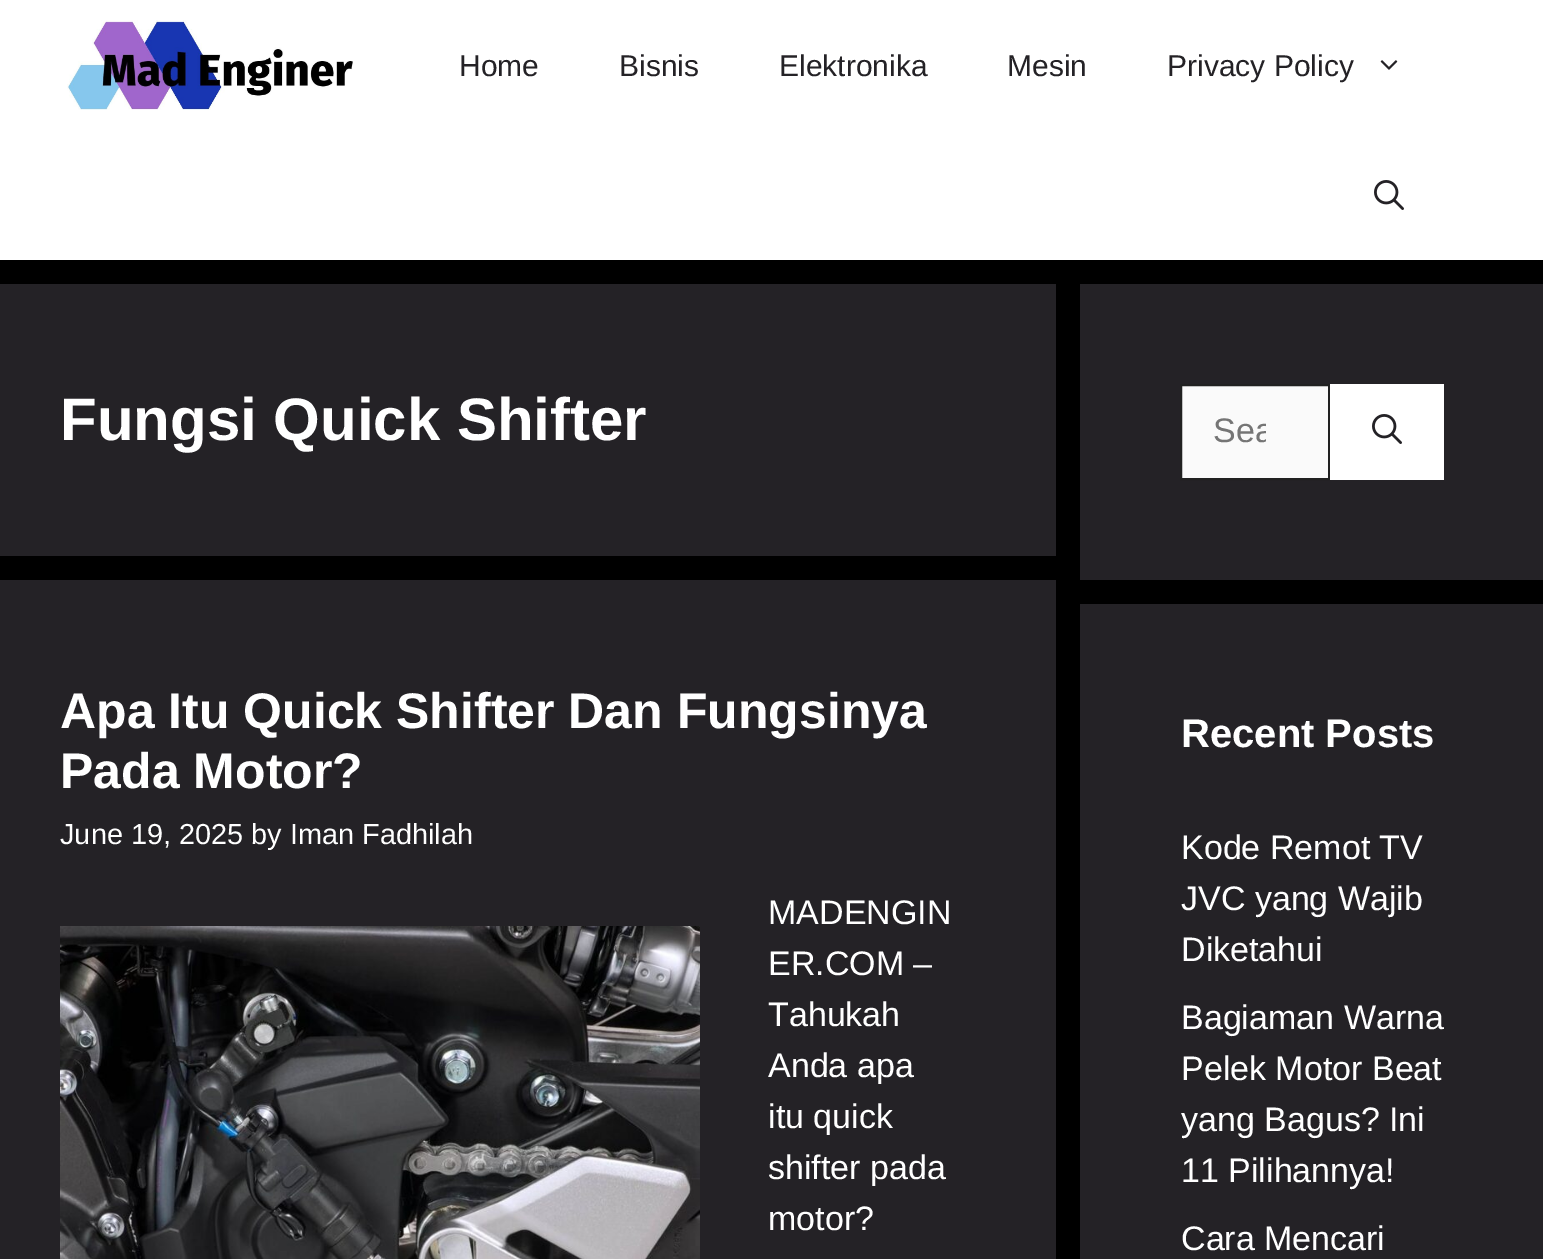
%!PS-Adobe-3.0
%%BoundingBox: 0 0 1543 1259
%%LanguageLevel: 3
%%Pages: 1
%%EndComments
%%BeginProlog
/setink { dup -16 bitshift 255 div exch dup -8 bitshift 255 and 255 div exch 255 and 255 div setrgbcolor } def
/usefont { [ exch dup neg 0 0 3 -1 roll 0 0 ] selectfont } def
/drawimage { 5 dict begin { /h /w /y /x /name } { exch def } forall
  gsave x y translate w h scale
  w h 8 [w 0 0 h 0 0] name (r) file false 3 colorimage grestore end } def
%%EndProlog
%%BeginSetup
<< /PageSize [1543 1259] >> setpagedevice
%%EndSetup
%%Page: 1 1
0 1259 translate 1 -1 scale
4 setmiterlimit
16#000000 setink
0 0 1543 1259 rectfill
16#FFFFFF setink
0 0 1543 260 rectfill
(img1.raw) 67 20 286 90 drawimage
/LiberationSans-Regular 30 usefont
16#242226 setink
[
    [(Home) 459 76]
    [(Bisnis) 619 76]
    [(Elektronika) 779 76]
    [(Mesin) 1007 76]
    [(Privacy Policy) 1167 76]
] { aload pop moveto show } forall
(img2.raw) 1380 60 18 10 drawimage
(img3.raw) 1374 180 30 30 drawimage
0 284 1056 272 rectfill
/LiberationSans-Bold 60 usefont
16#FFFFFF setink
60 440 moveto (Fungsi Quick Shifter) show
16#242226 setink
0 580 1056 679 rectfill
/LiberationSans-Bold 50 usefont
16#FFFFFF setink
60 728 moveto (Apa Itu Quick Shifter Dan Fungsinya) show
60 788 moveto (Pada Motor?) show
/LiberationSans-Regular 28.9 usefont
60 844 moveto (June 19, 2025 by Iman Fadhilah) show
(img4.raw) 60 926 640 333 drawimage
/LiberationSans-Regular 34 usefont
[
    [(MADENGIN) 768 924]
    [(ER.COM –) 768 975]
    [(Tahukah) 768 1026]
    [(Anda apa) 768 1077]
    [(itu quick) 768 1128]
    [(shifter pada) 768 1179]
    [(motor?) 768 1230]
] { aload pop moveto show } forall
16#242226 setink
1080 284 463 296 rectfill
16#FAFAFA setink
1181 385 moveto 1329 385 lineto 1329 479 lineto 1181 479 lineto closepath gsave fill grestore
16#212121 setink
2 setlinewidth
stroke
gsave
1212 412 54 40 rectclip
16#757575 setink
1213 442 moveto (Sea) show
grestore
16#FFFFFF setink
1330 384 114 96 rectfill
(img3.raw) 1372 414 30 30 drawimage
16#242226 setink
1080 604 463 655 rectfill
/LiberationSans-Bold 40 usefont
16#FFFFFF setink
1181 747 moveto (Recent Posts) show
/LiberationSans-Regular 34 usefont
[
    [(Kode Remot TV) 1181 859]
    [(JVC yang Wajib) 1181 910]
    [(Diketahui) 1181 961]
    [(Bagiaman Warna) 1181 1029]
    [(Pelek Motor Beat) 1181 1080]
    [(yang Bagus? Ini) 1181 1131]
    [(11 Pilihannya!) 1181 1182]
    [(Cara Mencari) 1181 1250]
] { aload pop moveto show } forall
showpage
%%EOF
